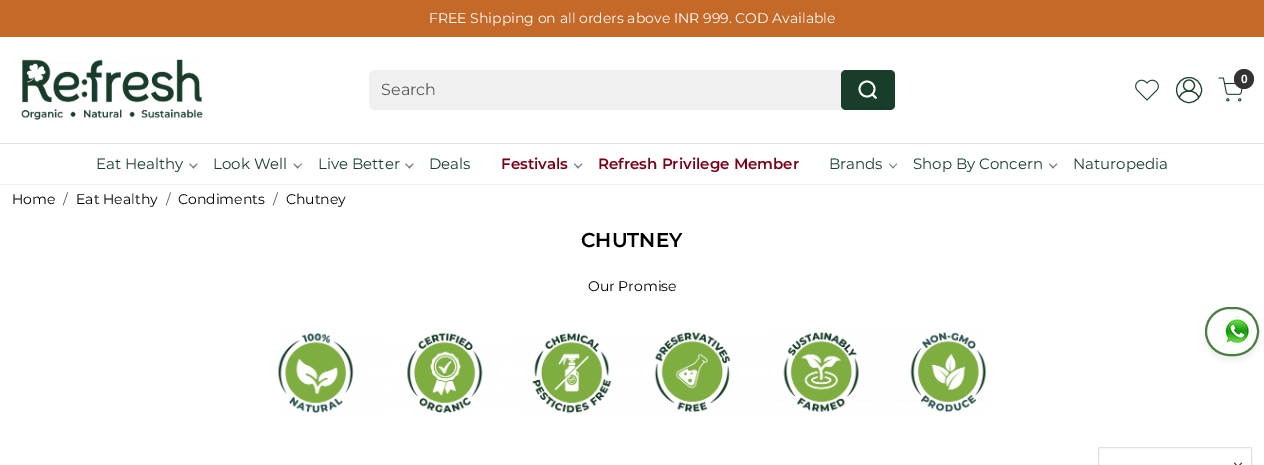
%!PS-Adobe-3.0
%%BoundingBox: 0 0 1264 465
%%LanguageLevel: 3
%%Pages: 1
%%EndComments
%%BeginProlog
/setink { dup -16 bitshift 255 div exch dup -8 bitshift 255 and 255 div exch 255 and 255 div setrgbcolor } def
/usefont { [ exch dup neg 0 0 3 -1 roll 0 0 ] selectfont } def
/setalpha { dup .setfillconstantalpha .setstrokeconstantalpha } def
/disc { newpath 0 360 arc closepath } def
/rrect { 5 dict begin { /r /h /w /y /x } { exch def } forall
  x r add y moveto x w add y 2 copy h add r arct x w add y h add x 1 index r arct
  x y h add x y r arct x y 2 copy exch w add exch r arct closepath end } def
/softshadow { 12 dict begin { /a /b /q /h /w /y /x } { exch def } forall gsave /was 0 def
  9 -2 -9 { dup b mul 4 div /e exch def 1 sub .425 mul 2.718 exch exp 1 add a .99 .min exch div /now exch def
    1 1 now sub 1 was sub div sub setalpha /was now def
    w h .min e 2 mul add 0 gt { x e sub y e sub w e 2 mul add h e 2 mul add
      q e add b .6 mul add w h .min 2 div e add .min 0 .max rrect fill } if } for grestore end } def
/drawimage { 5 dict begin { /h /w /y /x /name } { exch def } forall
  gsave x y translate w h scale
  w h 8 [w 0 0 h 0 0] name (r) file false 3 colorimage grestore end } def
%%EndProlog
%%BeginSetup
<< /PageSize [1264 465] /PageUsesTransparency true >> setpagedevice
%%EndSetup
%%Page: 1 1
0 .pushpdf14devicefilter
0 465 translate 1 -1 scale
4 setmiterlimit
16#FFFFFF setink
0 0 1264 465 rectfill
16#C56928 setink
0 0 1264 37 rectfill
/Montserrat-Regular 14 usefont
16#FFFFFF setink
429 23 moveto (FREE Shipping on all orders above INR 999. COD Available) show
16#EEEEEE setink
0 184 1264 1 rectfill
(img1.raw) 21 59 182 61 drawimage
(img2.raw) 1135 79 24 22 drawimage
16#183D2A setink
1189 90 12.5 disc stroke
gsave
1177 78 24 24 12 rrect clip newpath
1.1 setlinewidth
2 setlinecap
1179 100 moveto 1179 88 1199 88 1199 100 curveto stroke
grestore
1.1 setlinewidth
1189 85.5 5.5 disc stroke
(img3.raw) 1218 77 25 25 drawimage
16#333333 setink
1244 79 10 disc fill
/LiberationSans-Bold 12 usefont
16#FFFFFF setink
1241 83 moveto (0) show
16#F0F0F0 setink
375 70 moveto 895 70 lineto 895 110 lineto 375 110 lineto 371.5 110 369 107.5 369 104 curveto 369 76 lineto 369 72.5 371.5 70 375 70 curveto closepath fill
/Montserrat-Regular 16 usefont
16#595C5F setink
381 95 moveto (Search) show
16#183D2A setink
841 70 54 40 5 rrect fill
16#FFFFFF setink
1.8 setlinewidth
867 89 7.5 disc stroke
1 setlinecap
1 setlinejoin
876 98 moveto 872.5 94.5 lineto stroke
16#DEE2E6 setink
0 143 1264 1 rectfill
/Montserrat-Regular 15 usefont
16#183D2A setink
96 169 moveto (Eat Healthy) show
16#70798B setink
197 163.5 moveto 197.5 164 lineto 193.5 168.5 lineto 192.5 167.5 lineto closepath fill
190 163.5 moveto 194 167.5 lineto 193.5 168.5 lineto 189 164 lineto closepath fill
16#183D2A setink
213 169 moveto (Look Well) show
16#70798B setink
301.5 163.5 moveto 302 164 lineto 297.5 168.5 lineto 297 167.5 lineto closepath fill
294 163.5 moveto 298.5 167.5 lineto 297.5 168.5 lineto 293.5 164 lineto closepath fill
16#183D2A setink
318 169 moveto (Live Better) show
16#70798B setink
413 163.5 moveto 413.5 164 lineto 409.5 168.5 lineto 408.5 167.5 lineto closepath fill
406 163.5 moveto 410 167.5 lineto 409.5 168.5 lineto 405 164 lineto closepath fill
16#183D2A setink
429 169 moveto (Deals) show
/Montserrat-SemiBold 15 usefont
16#7B0017 setink
501 169 moveto (Festivals) show
16#70798B setink
581.5 163.5 moveto 582.5 164 lineto 578 168.5 lineto 577.5 167.5 lineto closepath fill
574.5 163.5 moveto 579 167.5 lineto 578 168.5 lineto 574 164 lineto closepath fill
16#7B0017 setink
598 169 moveto (Refresh Privilege Member) show
/Montserrat-Regular 15 usefont
16#183D2A setink
829 169 moveto (Brands) show
16#70798B setink
896.5 163.5 moveto 897 164 lineto 893 168.5 lineto 892.5 167.5 lineto closepath fill
889.5 163.5 moveto 893.5 167.5 lineto 893 168.5 lineto 889 164 lineto closepath fill
16#183D2A setink
913 169 moveto (Shop By Concern) show
16#70798B setink
1056.5 163.5 moveto 1057.5 164 lineto 1053 168.5 lineto 1052.5 167.5 lineto closepath fill
1049.5 163.5 moveto 1054 167.5 lineto 1053 168.5 lineto 1049 164 lineto closepath fill
16#183D2A setink
1073 169 moveto (Naturopedia) show
/Montserrat-Regular 14 usefont
16#000000 setink
12 204 moveto (Home) show
16#595C5F setink
63 204 moveto (/) show
16#000000 setink
76 204 moveto (Eat Healthy) show
16#595C5F setink
166 204 moveto (/) show
16#000000 setink
178 204 moveto (Condiments) show
16#595C5F setink
273 204 moveto (/) show
16#000000 setink
286 204 moveto (Chutney) show
/Montserrat-SemiBold 20 usefont
581 247 moveto (CHUTNEY) show
/Montserrat-Regular 14 usefont
588 291 moveto (Our Promise) show
(img4.raw) 278 332 709 82 drawimage
16#DEE2E6 setink
1 setlinewidth
0 setlinecap
0 setlinejoin
1098.5 447.5 153 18 rectstroke
16#222222 setink
1241.5 462.5 moveto 1242 463 lineto 1238 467.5 lineto 1237.5 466.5 lineto closepath 1234.5 462.5 moveto 1238.5 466.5 lineto 1238 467.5 lineto 1234 463 lineto closepath fill
16#000000 setink
1205 312 54 49 24.5 2.5 0.05 softshadow
16#FFFFFF setink
1206 308 52 47 23.5 rrect gsave fill grestore
16#4B7E43 setink
2 setlinewidth
stroke
(img5.raw) 1222 316 30 31 drawimage
.poppdf14devicefilter showpage
%%EOF
